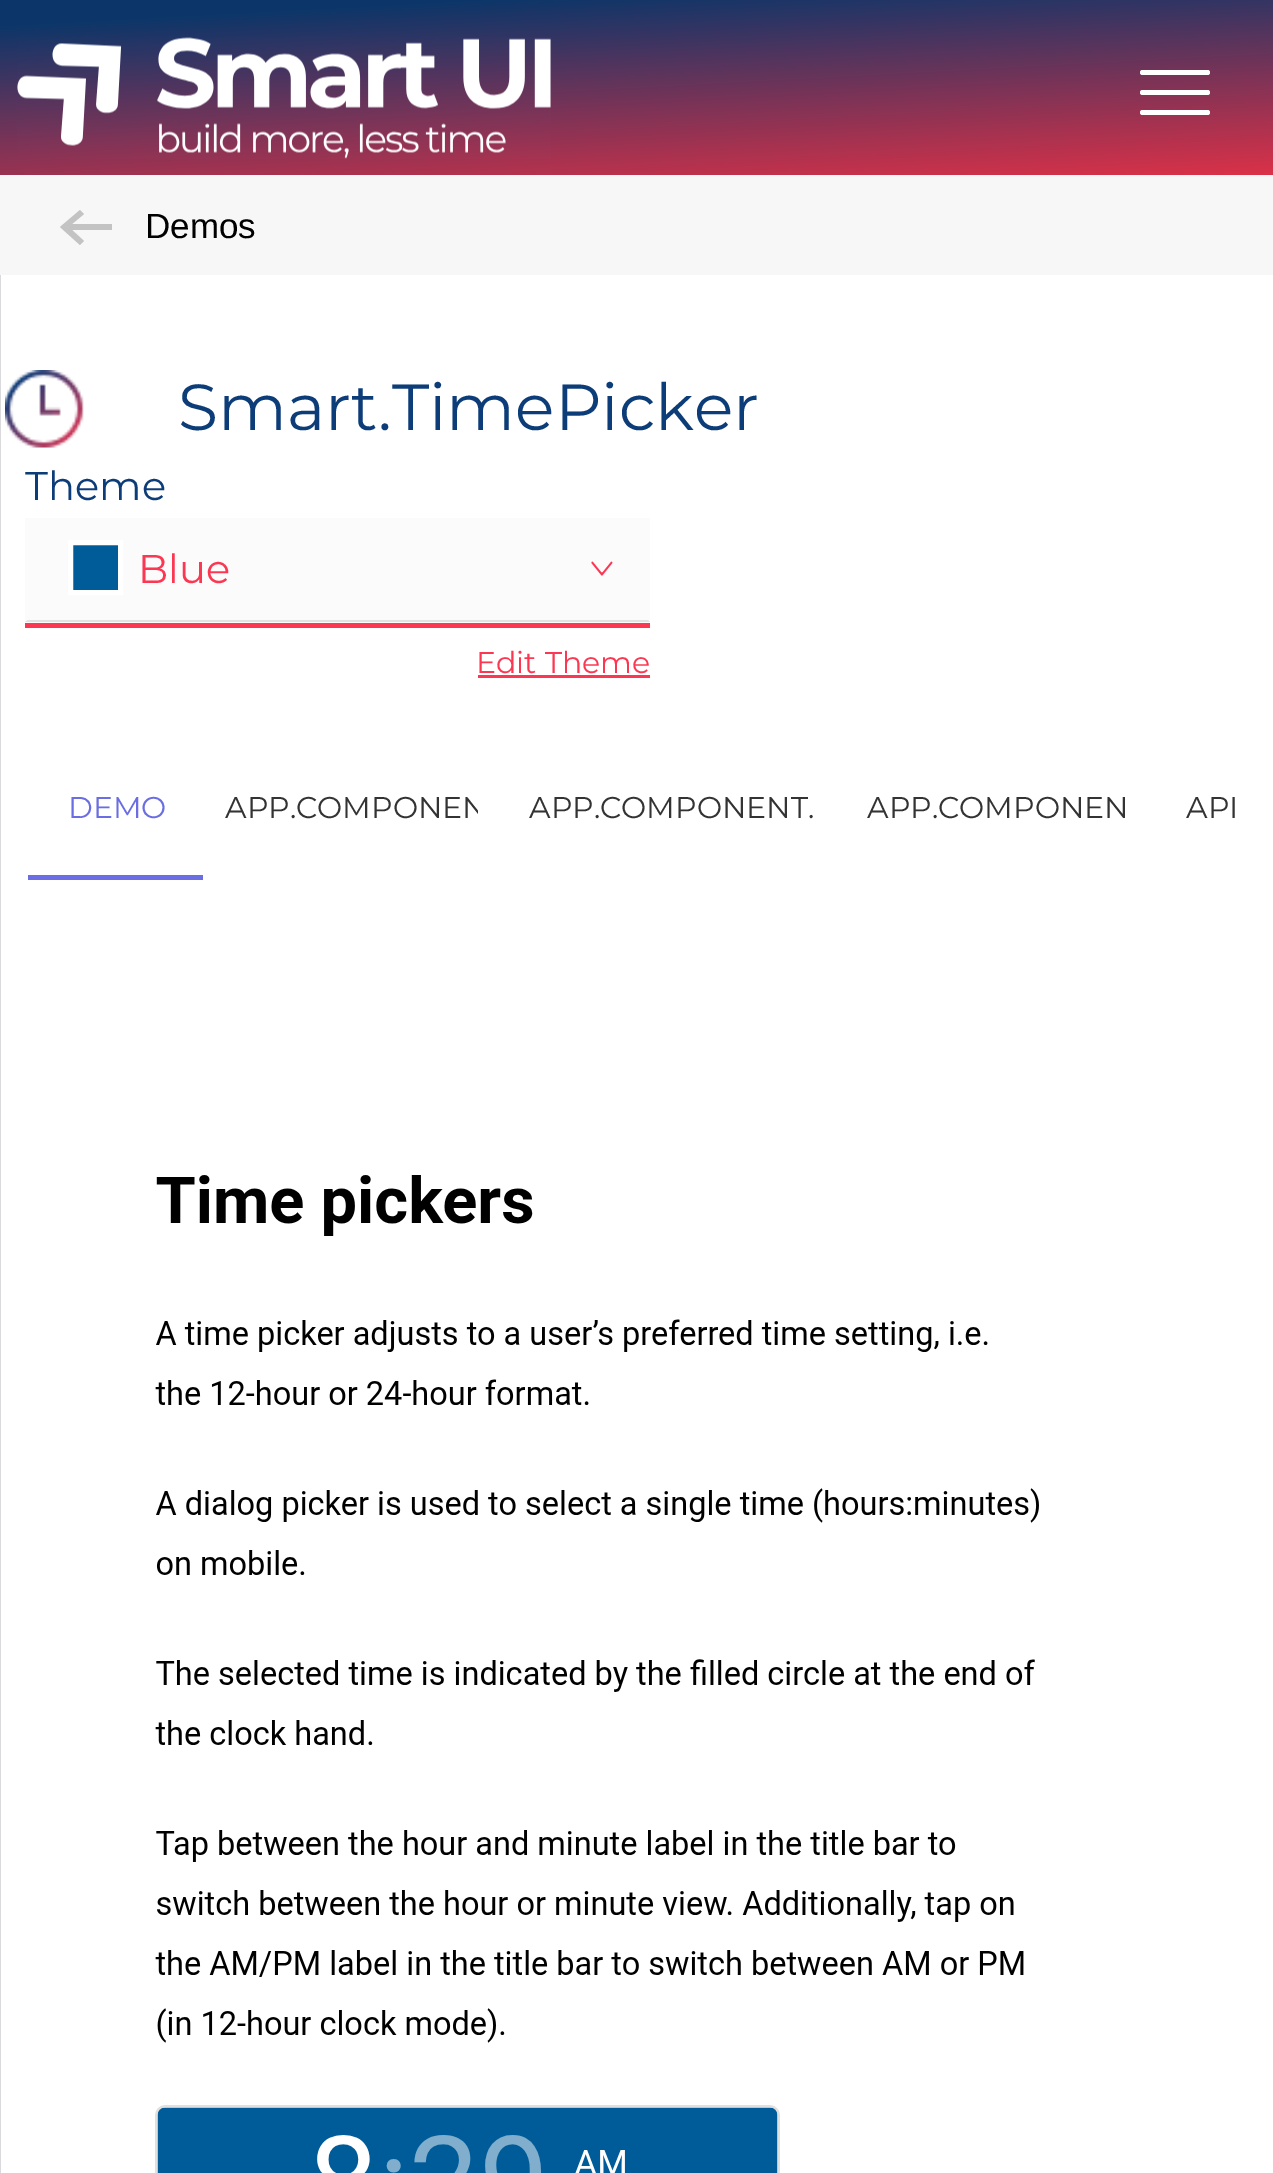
%!PS-Adobe-3.0
%%BoundingBox: 0 0 1273 2173
%%LanguageLevel: 3
%%Pages: 1
%%EndComments
%%BeginProlog
/setink { dup -16 bitshift 255 div exch dup -8 bitshift 255 and 255 div exch 255 and 255 div setrgbcolor } def
/usefont { [ exch dup neg 0 0 3 -1 roll 0 0 ] selectfont } def
/rrect { 5 dict begin { /r /h /w /y /x } { exch def } forall
  x r add y moveto x w add y 2 copy h add r arct x w add y h add x 1 index r arct
  x y h add x y r arct x y 2 copy exch w add exch r arct closepath end } def
/drawimage { 5 dict begin { /h /w /y /x /name } { exch def } forall
  gsave x y translate w h scale
  w h 8 [w 0 0 h 0 0] name (r) file false 3 colorimage grestore end } def
%%EndProlog
%%BeginSetup
<< /PageSize [1273 2173] >> setpagedevice
%%EndSetup
%%Page: 1 1
0 2173 translate 1 -1 scale
4 setmiterlimit
16#FFFFFF setink
0 0 1273 2173 rectfill
gsave 0 0 moveto 1273 0 lineto 1273 175 lineto 0 175 lineto closepath clip newpath
<< /ShadingType 2 /ColorSpace /DeviceRGB /Coords [631 -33 644 208] /Extend [true true] /Function << /FunctionType 3 /Domain [0 1] /Functions [<< /FunctionType 2 /Domain [0 1] /C0 [0.047 0.212 0.412] /C1 [0.047 0.212 0.412] /N 1 >> << /FunctionType 2 /Domain [0 1] /C0 [0.047 0.212 0.412] /C1 [0.855 0.192 0.282] /N 1 >>] /Bounds [0.1] /Encode [0 1 0 1] >> >> shfill grestore
(img1.raw) 17 37 534 122 drawimage
1140 70 70 5 2.5 rrect fill
1140 90 70 5 2.5 rrect fill
1140 110 70 5 2.5 rrect fill
16#F7F7F7 setink
0 175 1273 100 rectfill
16#C3C3C3 setink
72 230 moveto 112 230 lineto 112 224 lineto 72 224 lineto 84 214 lineto 80 210 lineto 60 227 lineto 80 245 lineto 84 241 lineto closepath fill
/LiberationSans-Regular 35 usefont
16#000000 setink
145 238 moveto (Demos) show
16#DADADC setink
0 275 1 1898 rectfill
(img2.raw) 5 370 79 78 drawimage
/Montserrat-Regular 65 usefont
16#0C3D78 setink
178 430 moveto (Smart.TimePicker) show
/Montserrat-Regular 40 usefont
25 500 moveto (Theme) show
16#FC3752 setink
25 623 625 5 rectfill
16#FBFBFC setink
25 518 625 105 rectfill
16#E2E2E3 setink
650 622 moveto 25 622 lineto 28 620 lineto 648 620 lineto closepath fill
16#005C99 setink
70.5 542.5 moveto 120.5 542.5 lineto 120.5 592.5 lineto 70.5 592.5 lineto closepath gsave fill grestore
16#FFFFFF setink
5 setlinewidth
stroke
16#FC3752 setink
138 583 moveto (Blue) show
(img3.raw) 591 561 22 15 drawimage
/Montserrat-Regular 30 usefont
476 673 moveto (Edit Theme) show
478 675 172 3 rectfill
16#6A6EE2 setink
68 818 moveto (DEMO) show
gsave
185 748 293 120 rectclip
16#333333 setink
225 818 moveto (APP.COMPONEN) show
grestore
16#333333 setink
[
    [(APP.COMPONENT.) 529 818]
    [(APP.COMPONEN) 867 818]
    [(API) 1186 818]
] { aload pop moveto show } forall
16#6A6EE2 setink
28 875 175 5 rectfill
(img4.raw) 155 1175 884 998 drawimage
showpage
%%EOF
